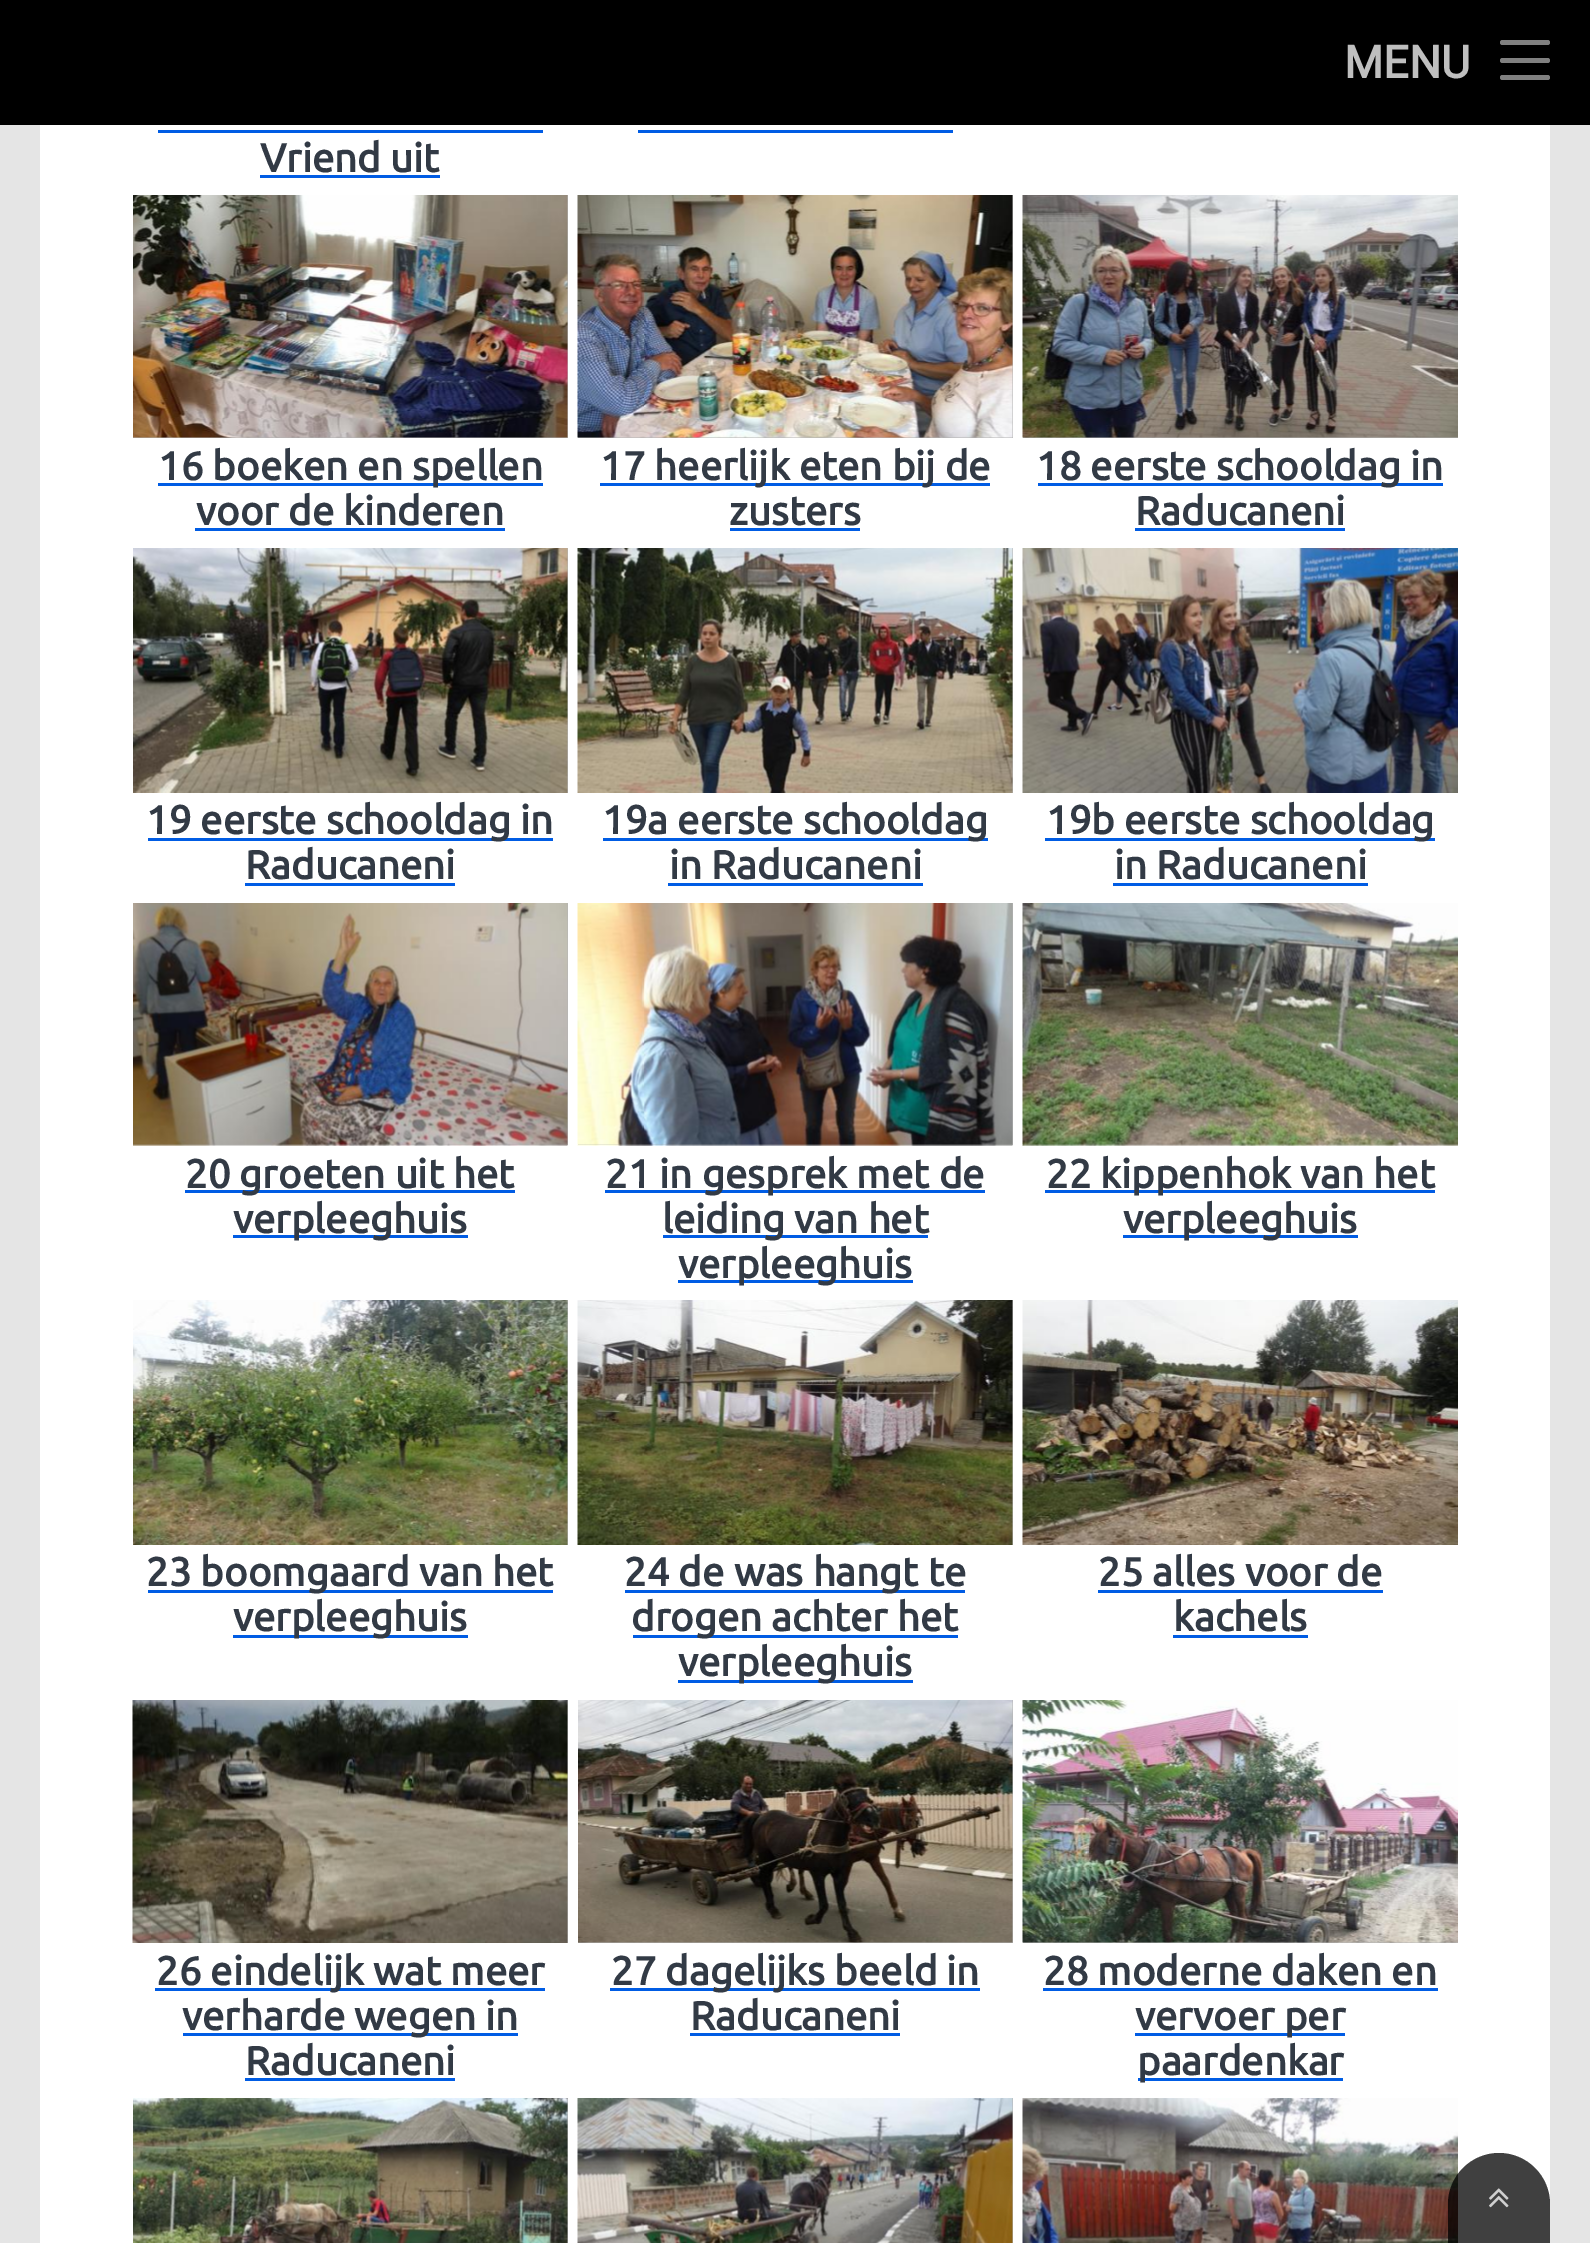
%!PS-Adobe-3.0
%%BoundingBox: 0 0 1590 2243
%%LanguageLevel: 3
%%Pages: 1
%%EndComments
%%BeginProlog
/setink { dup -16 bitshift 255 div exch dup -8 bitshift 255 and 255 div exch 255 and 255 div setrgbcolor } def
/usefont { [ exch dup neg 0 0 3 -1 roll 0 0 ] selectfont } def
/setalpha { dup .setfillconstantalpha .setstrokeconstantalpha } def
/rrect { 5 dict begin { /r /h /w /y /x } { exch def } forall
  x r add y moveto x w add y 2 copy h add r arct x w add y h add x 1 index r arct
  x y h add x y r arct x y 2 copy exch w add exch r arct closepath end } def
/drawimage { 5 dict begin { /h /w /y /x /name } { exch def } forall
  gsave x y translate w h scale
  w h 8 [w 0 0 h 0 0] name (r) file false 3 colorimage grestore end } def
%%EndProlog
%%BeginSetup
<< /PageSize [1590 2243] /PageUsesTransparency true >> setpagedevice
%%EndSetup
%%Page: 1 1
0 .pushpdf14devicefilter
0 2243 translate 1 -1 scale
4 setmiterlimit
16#E5E5E5 setink
0 0 1590 2243 rectfill
16#000000 setink
0 0 1590 125 rectfill
/Roboto-Bold 45 usefont
16#BFBFBF setink
1344 78 moveto (MENU) show
16#808080 setink
1500 40 50 5 2.5 rrect fill
1500 58 50 5 2.5 rrect fill
1500 75 50 5 2.5 rrect fill
16#FFFFFF setink
40 125 1510 2118 rectfill
16#005CE4 setink
638 130 315 3 rectfill
/Ubuntu-Bold 40 usefont
16#323A45 setink
260 172 moveto (Vriend uit) show
[
    [158 130 385 3 16#005CE4]
    [260 175 180 3 16#005CE4]
    [133 195 435 243 16#B3B3B3]
] { aload pop setink rectfill } forall
(img1.raw) 133 195 435 243 drawimage
16#005CE4 setink
158 483 385 3 rectfill
16#323A45 setink
158 480 moveto (16 boeken en spellen) show
196 525 moveto (voor de kinderen) show
16#005CE4 setink
195 528 310 3 rectfill
16#B3B3B3 setink
578 195 435 243 rectfill
(img2.raw) 577 195 436 243 drawimage
16#005CE4 setink
600 483 390 3 rectfill
16#323A45 setink
600 480 moveto (17 heerlijk eten bij de) show
729 525 moveto (zusters) show
16#005CE4 setink
730 528 130 3 rectfill
16#B3B3B3 setink
1023 437 435 1 rectfill
(img3.raw) 1022 195 436 243 drawimage
16#005CE4 setink
1038 483 405 3 rectfill
16#323A45 setink
1036 480 moveto (18 eerste schooldag in) show
1135 525 moveto (Raducaneni) show
16#005CE4 setink
1135 528 210 3 rectfill
16#B3B3B3 setink
567 548 1 245 rectfill
(img4.raw) 133 548 435 245 drawimage
16#005CE4 setink
148 838 405 3 rectfill
16#323A45 setink
146 834 moveto (19 eerste schooldag in) show
245 879 moveto (Raducaneni) show
16#005CE4 setink
245 883 210 3 rectfill
16#B3B3B3 setink
1012 548 1 245 rectfill
(img5.raw) 577 548 436 245 drawimage
16#005CE4 setink
603 838 385 3 rectfill
16#323A45 setink
602 834 moveto (19a eerste schooldag) show
669 879 moveto (in Raducaneni) show
16#005CE4 setink
668 883 255 3 rectfill
(img6.raw) 1022 548 436 245 drawimage
1045 838 390 3 rectfill
16#323A45 setink
1046 834 moveto (19b eerste schooldag) show
1114 879 moveto (in Raducaneni) show
16#005CE4 setink
1113 883 255 3 rectfill
16#B3B3B3 setink
133 903 435 242 rectfill
(img7.raw) 133 903 435 243 drawimage
16#005CE4 setink
185 1190 330 3 rectfill
16#323A45 setink
185 1188 moveto (20 groeten uit het) show
16#005CE4 setink
233 1235 235 3 rectfill
16#323A45 setink
233 1233 moveto (verpleeghuis) show
16#B3B3B3 setink
578 903 435 242 rectfill
(img8.raw) 577 903 436 243 drawimage
16#005CE4 setink
605 1190 380 3 rectfill
16#323A45 setink
605 1188 moveto (21 in gesprek met de) show
16#005CE4 setink
663 1235 265 3 rectfill
16#323A45 setink
662 1233 moveto (leiding van het) show
16#005CE4 setink
678 1280 235 3 rectfill
16#323A45 setink
678 1278 moveto (verpleeghuis) show
(img9.raw) 1022 903 436 243 drawimage
16#005CE4 setink
1045 1190 390 3 rectfill
16#323A45 setink
1046 1188 moveto (22 kippenhok van het) show
16#005CE4 setink
1123 1235 235 3 rectfill
16#323A45 setink
1123 1233 moveto (verpleeghuis) show
16#B3B3B3 setink
567 1300 1 245 rectfill
(img10.raw) 133 1300 435 245 drawimage
16#005CE4 setink
148 1590 405 3 rectfill
16#323A45 setink
146 1586 moveto (23 boomgaard van het) show
16#005CE4 setink
233 1635 235 3 rectfill
16#323A45 setink
233 1631 moveto (verpleeghuis) show
16#B3B3B3 setink
1012 1300 1 245 rectfill
(img11.raw) 577 1300 436 245 drawimage
16#005CE4 setink
625 1590 340 3 rectfill
16#323A45 setink
624 1586 moveto (24 de was hangt te) show
16#005CE4 setink
633 1635 325 3 rectfill
16#323A45 setink
631 1631 moveto (drogen achter het) show
16#005CE4 setink
678 1680 235 3 rectfill
16#323A45 setink
678 1676 moveto (verpleeghuis) show
(img12.raw) 1022 1300 436 245 drawimage
1098 1586 moveto (25 alles voor de) show
16#005CE4 setink
1098 1590 285 3 rectfill
16#323A45 setink
1173 1631 moveto (kachels) show
16#005CE4 setink
1173 1635 135 3 rectfill
16#B3B3B3 setink
567 1700 1 243 rectfill
(img13.raw) 132 1700 436 243 drawimage
16#005CE4 setink
155 1988 390 3 rectfill
16#323A45 setink
156 1985 moveto (26 eindelijk wat meer) show
16#005CE4 setink
183 2033 335 3 rectfill
16#323A45 setink
182 2030 moveto (verharde wegen in) show
245 2075 moveto (Raducaneni) show
16#005CE4 setink
245 2078 210 3 rectfill
16#B3B3B3 setink
578 1700 435 243 rectfill
(img14.raw) 578 1700 435 243 drawimage
16#005CE4 setink
610 1988 370 3 rectfill
16#323A45 setink
611 1985 moveto (27 dagelijks beeld in) show
690 2030 moveto (Raducaneni) show
16#005CE4 setink
690 2033 210 3 rectfill
16#B3B3B3 setink
1023 1942 435 1 rectfill
(img15.raw) 1022 1700 436 243 drawimage
16#323A45 setink
1043 1985 moveto (28 moderne daken en) show
16#005CE4 setink
1043 1988 395 3 rectfill
1135 2033 210 3 rectfill
16#323A45 setink
1135 2030 moveto (vervoer per) show
16#005CE4 setink
1138 2078 205 3 rectfill
16#323A45 setink
1137 2075 moveto (paardenkar) show
16#B3B3B3 setink
567 2098 1 145 rectfill
(img16.raw) 133 2098 435 145 drawimage
1012 2098 1 145 rectfill
(img17.raw) 577 2098 436 145 drawimage
(img18.raw) 1022 2098 436 145 drawimage
0.75 setalpha
16#000000 setink
1499 2153 moveto 1527 2153 1550 2176 1550 2204 curveto 1550 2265 lineto 1448 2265 lineto 1448 2204 lineto 1448 2176 1471 2153 1499 2153 curveto closepath fill
1 setalpha
(img19.raw) 1489 2188 20 20 drawimage
.poppdf14devicefilter showpage
%%EOF
